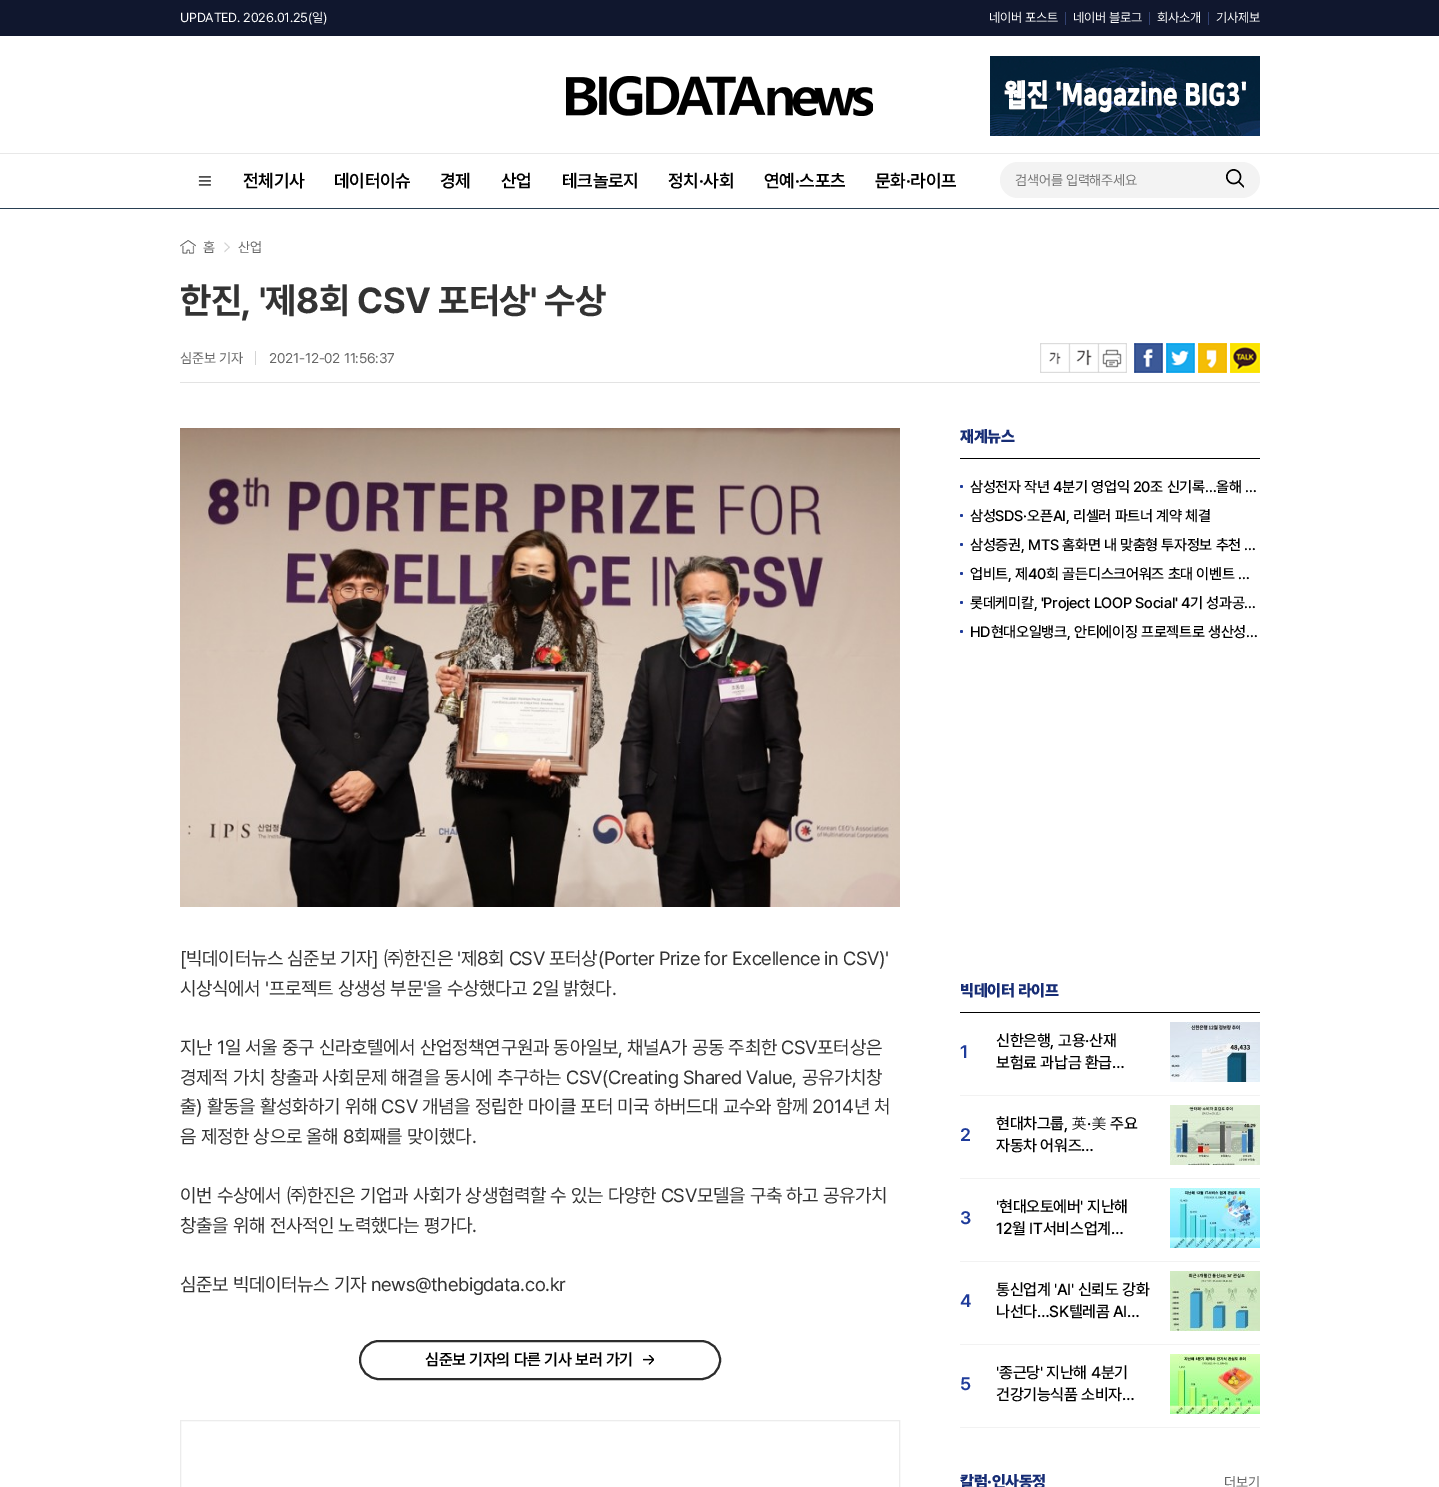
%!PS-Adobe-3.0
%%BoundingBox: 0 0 1439 1487
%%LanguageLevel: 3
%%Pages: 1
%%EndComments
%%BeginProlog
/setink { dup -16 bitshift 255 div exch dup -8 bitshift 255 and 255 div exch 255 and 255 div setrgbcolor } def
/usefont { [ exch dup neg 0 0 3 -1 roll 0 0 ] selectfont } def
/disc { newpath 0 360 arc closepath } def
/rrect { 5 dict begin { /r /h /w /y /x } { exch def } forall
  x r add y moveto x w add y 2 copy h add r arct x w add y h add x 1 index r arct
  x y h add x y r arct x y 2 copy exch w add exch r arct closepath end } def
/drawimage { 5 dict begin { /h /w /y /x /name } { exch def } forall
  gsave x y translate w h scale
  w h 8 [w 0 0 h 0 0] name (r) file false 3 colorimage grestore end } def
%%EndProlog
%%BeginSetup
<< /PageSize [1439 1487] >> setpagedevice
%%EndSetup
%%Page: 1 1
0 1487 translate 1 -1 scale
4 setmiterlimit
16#FFFFFF setink
0 0 1439 1487 rectfill
16#10172E setink
0 0 1439 36 rectfill
/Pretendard-Regular 13 usefont
16#FFFFFF setink
180 22 moveto -0.2 0 (UPDATED. 2026.01.25\(일\)) ashow
989 22 moveto -0.25 0 (네이버 포스트) ashow
16#334272 setink
1065 12 1 13 rectfill
16#FFFFFF setink
1073 22 moveto -0.25 0 (네이버 블로그) ashow
16#334272 setink
1149 12 1 13 rectfill
16#FFFFFF setink
1157 22 moveto -0.25 0 (회사소개) ashow
16#334272 setink
1208 12 1 13 rectfill
16#FFFFFF setink
1216 22 moveto -0.25 0 (기사제보) ashow
16#E8E8E8 setink
0 153 1439 1 rectfill
(img1.raw) 566 76 307 40 drawimage
(img2.raw) 990 56 270 80 drawimage
16#293F52 setink
0 208 1439 1 rectfill
(img3.raw) 198 176 13 10 drawimage
/Pretendard-SemiBold 18 usefont
16#000000 setink
243 187 moveto -0.25 0 (전체기사) ashow
334 187 moveto -0.25 0 (데이터이슈) ashow
440 187 moveto -0.25 0 (경제) ashow
501 187 moveto -0.25 0 (산업) ashow
562 187 moveto -0.25 0 (테크놀로지) ashow
668 187 moveto -0.25 0 (정치·사회) ashow
764 187 moveto -0.25 0 (연예·스포츠) ashow
875 187 moveto -0.25 0 (문화·라이프) ashow
16#F3F3F3 setink
1000 162 260 36 18 rrect fill
/Pretendard-Regular 14 usefont
16#757575 setink
1015 185 moveto -0.25 0 (검색어를 입력해주세요) ashow
(img4.raw) 1226 169 18 19 drawimage
16#E3E3E3 setink
180 382 1080 1 rectfill
(img5.raw) 180 240 16 14 drawimage
16#666666 setink
203 252 moveto -0.25 0 (홈) ashow
(img6.raw) 224 242 6 11 drawimage
238 252 moveto -0.25 0 (산업) ashow
/Pretendard-Bold 36 usefont
16#333333 setink
180 313 moveto -0.5 0 (한진, '제8회 CSV 포터상' 수상) ashow
/Pretendard-Regular 14 usefont
16#666666 setink
180 363 moveto -0.25 0 (심준보 기자) ashow
16#D4D4D4 setink
255 351 1 14 rectfill
16#666666 setink
269 363 moveto -0.25 0 (2021-12-02 11:56:37) ashow
(img7.raw) 1040 343 30 30 drawimage
(img8.raw) 1070 343 29 30 drawimage
(img9.raw) 1099 343 28 30 drawimage
(img10.raw) 1134 343 29 30 drawimage
(img11.raw) 1166 343 29 30 drawimage
(img12.raw) 1198 343 29 30 drawimage
(img13.raw) 1230 343 30 30 drawimage
(img14.raw) 180 428 720 479 drawimage
/Pretendard-Regular 19 usefont
16#333333 setink
180 965 moveto -0.3 0 ([빅데이터뉴스 심준보 기자] ㈜한진은 '제8회 CSV 포터상\(Porter Prize for Excellence in CSV\)') ashow
180 995 moveto -0.3 0 (시상식에서 '프로젝트 상생성 부문'을 수상했다고 2일 밝혔다.) ashow
180 1054 moveto -0.3 0 (지난 1일 서울 중구 신라호텔에서 산업정책연구원과 동아일보, 채널A가 공동 주최한 CSV포터상은) ashow
180 1084 moveto -0.3 0 (경제적 가치 창출과 사회문제 해결을 동시에 추구하는 CSV\(Creating Shared Value, 공유가치창) ashow
180 1113 moveto -0.3 0 (출\) 활동을 활성화하기 위해 CSV 개념을 정립한 마이클 포터 미국 하버드대 교수와 함께 2014년 처) ashow
180 1143 moveto -0.3 0 (음 제정한 상으로 올해 8회째를 맞이했다.) ashow
180 1202 moveto -0.3 0 (이번 수상에서 ㈜한진은 기업과 사회가 상생협력할 수 있는 다양한 CSV모델을 구축 하고 공유가치) ashow
180 1232 moveto -0.3 0 (창출을 위해 전사적인 노력했다는 평가다.) ashow
180 1291 moveto -0.3 0 (심준보 빅데이터뉴스 기자 news@thebigdata.co.kr) ashow
16#2D2D2D setink
2 setlinewidth
360 1341 360 38 19 rrect stroke
(img15.raw) 643 1355 11 10 drawimage
/Pretendard-SemiBold 16 usefont
16#000000 setink
425 1365 moveto -0.25 0 (심준보 기자의 다른 기사 보러 가기) ashow
16#ECECEC setink
1 setlinewidth
180.5 1420.5 719 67 rectstroke
16#000000 setink
960 458 300 1 rectfill
/Pretendard-Black 16 usefont
16#172D75 setink
960 442 moveto -0.25 0 (재계뉴스) ashow
16#1E3B9A setink
961.5 486.5 1.5 disc fill
/Pretendard-Medium 15 usefont
16#000000 setink
970 492 moveto -0.25 0 (삼성전자 작년 4분기 영업익 20조 신기록…올해 …) ashow
16#1E3B9A setink
961.5 515.5 1.5 disc fill
16#000000 setink
970 521 moveto -0.25 0 (삼성SDS·오픈AI, 리셀러 파트너 계약 체결) ashow
16#1E3B9A setink
961.5 544.5 1.5 disc fill
16#000000 setink
970 550 moveto -0.25 0 (삼성증권, MTS 홈화면 내 맞춤형 투자정보 추천 …) ashow
16#1E3B9A setink
961.5 573.5 1.5 disc fill
16#000000 setink
970 579 moveto -0.25 0 (업비트, 제40회 골든디스크어워즈 초대 이벤트 …) ashow
16#1E3B9A setink
961.5 602.5 1.5 disc fill
16#000000 setink
970 608 moveto -0.25 0 (롯데케미칼, 'Project LOOP Social' 4기 성과공…) ashow
16#1E3B9A setink
961.5 631.5 1.5 disc fill
16#000000 setink
970 637 moveto -0.25 0 (HD현대오일뱅크, 안티에이징 프로젝트로 생산성…) ashow
960 1012 300 1 rectfill
/Pretendard-Black 16 usefont
16#172D75 setink
960 996 moveto -0.25 0 (빅데이터 라이프) ashow
16#F2F2F2 setink
960 1095 300 1 rectfill
/Pretendard-SemiBold 18 usefont
16#1E3B9A setink
960 1058 moveto (1) show
/Pretendard-Medium 16 usefont
16#000000 setink
996 1046 moveto -0.25 0 (신한은행, 고용·산재) ashow
996 1068 moveto -0.25 0 (보험료 과납금 환급…) ashow
(img16.raw) 1170 1022 90 60 drawimage
16#F2F2F2 setink
960 1178 300 1 rectfill
/Pretendard-SemiBold 18 usefont
16#1E3B9A setink
960 1141 moveto (2) show
/Pretendard-Medium 16 usefont
16#000000 setink
996 1129 moveto -0.25 0 (현대차그룹,) ashow
/Gulim-Regular 16 usefont
1071 1129 moveto -0.25 0 (英) ashow
/Pretendard-Medium 16 usefont
1087 1129 moveto -0.25 0 (·) ashow
/Gulim-Regular 16 usefont
1091 1129 moveto -0.25 0 (美) ashow
/Pretendard-Medium 16 usefont
1110 1129 moveto -0.25 0 (주요) ashow
996 1151 moveto -0.25 0 (자동차 어워즈…) ashow
(img17.raw) 1170 1105 90 60 drawimage
16#F2F2F2 setink
960 1261 300 1 rectfill
/Pretendard-SemiBold 18 usefont
16#1E3B9A setink
960 1224 moveto (3) show
/Pretendard-Medium 16 usefont
16#000000 setink
996 1212 moveto -0.25 0 ('현대오토에버' 지난해) ashow
996 1234 moveto -0.25 0 (12월 IT서비스업계…) ashow
(img18.raw) 1170 1188 90 60 drawimage
16#F2F2F2 setink
960 1344 300 1 rectfill
/Pretendard-SemiBold 18 usefont
16#1E3B9A setink
960 1307 moveto (4) show
/Pretendard-Medium 16 usefont
16#000000 setink
996 1295 moveto -0.25 0 (통신업계 'AI' 신뢰도 강화) ashow
996 1317 moveto -0.25 0 (나선다…SK텔레콤 AI…) ashow
(img19.raw) 1170 1271 90 60 drawimage
16#F2F2F2 setink
960 1427 300 1 rectfill
/Pretendard-SemiBold 18 usefont
16#1E3B9A setink
960 1390 moveto (5) show
/Pretendard-Medium 16 usefont
16#000000 setink
996 1378 moveto -0.25 0 ('종근당' 지난해 4분기) ashow
996 1400 moveto -0.25 0 (건강기능식품 소비자…) ashow
(img20.raw) 1170 1354 90 60 drawimage
/Pretendard-Black 16 usefont
16#172D75 setink
960 1487 moveto -0.25 0 (칼럼·인사동정) ashow
/Pretendard-Regular 14 usefont
16#666666 setink
1224 1487 moveto -0.25 0 (더보기) ashow
showpage
%%EOF
